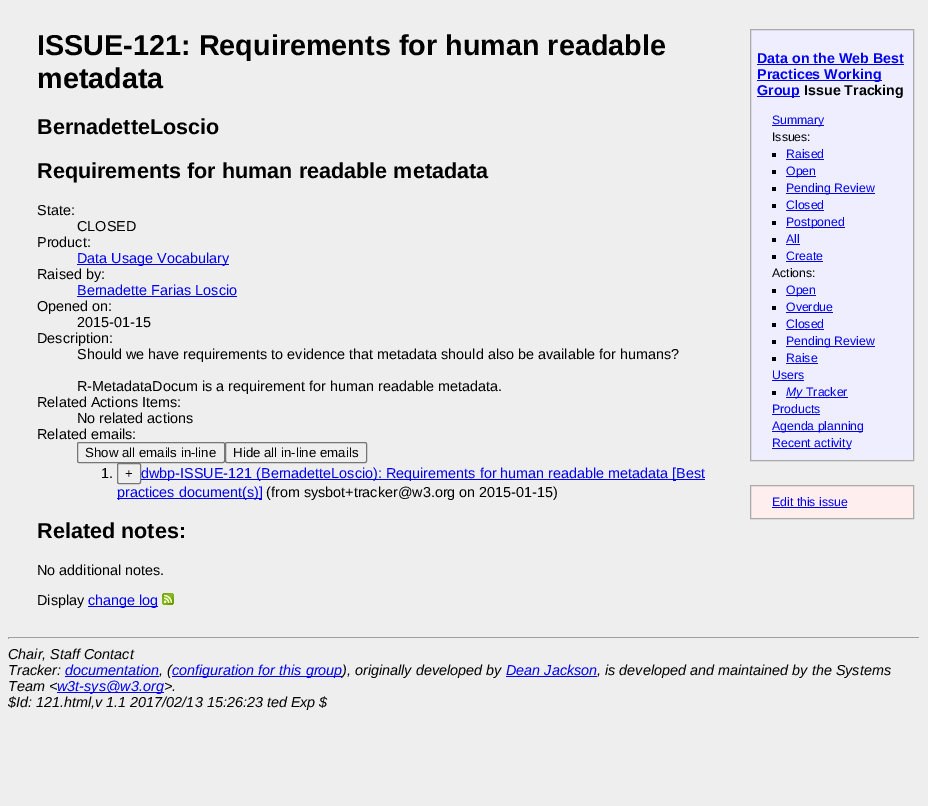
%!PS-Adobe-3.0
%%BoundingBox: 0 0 928 806
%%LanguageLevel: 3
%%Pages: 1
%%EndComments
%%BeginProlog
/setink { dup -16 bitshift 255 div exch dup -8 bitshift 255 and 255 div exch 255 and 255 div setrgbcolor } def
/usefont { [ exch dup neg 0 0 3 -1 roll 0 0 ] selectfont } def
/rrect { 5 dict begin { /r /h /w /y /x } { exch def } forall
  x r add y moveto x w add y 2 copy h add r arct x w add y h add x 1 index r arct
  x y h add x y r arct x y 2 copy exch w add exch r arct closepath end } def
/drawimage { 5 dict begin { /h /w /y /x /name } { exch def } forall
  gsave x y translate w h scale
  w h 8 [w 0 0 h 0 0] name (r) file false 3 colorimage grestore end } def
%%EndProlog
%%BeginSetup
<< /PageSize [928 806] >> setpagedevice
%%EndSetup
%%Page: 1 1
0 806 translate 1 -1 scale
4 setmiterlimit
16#EEEEEE setink
0 0 928 806 rectfill
/LiberationSans-Bold 28.8 usefont
16#000000 setink
37 55 moveto (ISSUE-121: Requirements for human readable) show
37 88 moveto (metadata) show
/LiberationSans-Bold 21.6 usefont
37 134 moveto (BernadetteLoscio) show
37 178 moveto (Requirements for human readable metadata) show
/LiberationSans-Regular 14.4 usefont
[
    [(State:) 37 215]
    [(CLOSED) 77 231]
    [(Product:) 37 247]
] { aload pop moveto show } forall
16#0000EE setink
77 264 152 1 rectfill
77 263 moveto (Data Usage Vocabulary) show
16#000000 setink
37 279 moveto (Raised by:) show
16#0000EE setink
77 295 moveto (Bernadette Farias Loscio) show
77 296 160 1 rectfill
16#000000 setink
[
    [(Opened on:) 37 311]
    [(2015-01-15) 77 327]
    [(Description:) 37 343]
    [(Should we have requirements to evidence that metadata should also be available for humans?) 77 359]
    [(R-MetadataDocum is a requirement for human readable metadata.) 77 391]
    [(Related Actions Items:) 37 407]
    [(No related actions) 77 423]
    [(Related emails:) 37 439]
] { aload pop moveto show } forall
16#767676 setink
77.5 442.5 147 20 1.5 rrect stroke
/LiberationSans-Regular 13.25 usefont
16#000000 setink
85 457 moveto (Show all emails in-line) show
16#767676 setink
225.5 442.5 141 20 1.5 rrect stroke
16#000000 setink
233 457 moveto (Hide all in-line emails) show
/LiberationSans-Regular 14.4 usefont
101 478 moveto (1.) show
16#767676 setink
117.5 463.5 23 20 1.5 rrect stroke
/LiberationSans-Regular 13.25 usefont
16#000000 setink
125 478 moveto (+) show
16#0000EE setink
141 479 564 1 rectfill
/LiberationSans-Regular 14.4 usefont
141 478 moveto (dwbp-ISSUE-121 \(BernadetteLoscio\): Requirements for human readable metadata [Best) show
117 498 145 1 rectfill
117 497 moveto (practices document\(s\)]) show
16#000000 setink
266 497 moveto (\(from sysbot+tracker@w3.org on 2015-01-15\)) show
/LiberationSans-Bold 21.6 usefont
37 538 moveto (Related notes:) show
/LiberationSans-Regular 14.4 usefont
37 575 moveto (No additional notes.) show
37 605 moveto (Display) show
16#0000EE setink
88 606 70 1 rectfill
88 605 moveto (change log) show
(img1.raw) 162 593 12 12 drawimage
16#EEEEFF setink
750.5 29.5 moveto 913.5 29.5 lineto 913.5 460.5 lineto 750.5 460.5 lineto closepath gsave fill grestore
16#AAAAAA setink
stroke
/LiberationSans-Bold 14.25 usefont
16#0000EE setink
757 63 moveto (Data on the Web Best) show
757 64 147 1 rectfill
757 80 125 1 rectfill
757 79 moveto (Practices Working) show
757 96 43 1 rectfill
757 95 moveto (Group) show
16#000000 setink
804 95 moveto (Issue Tracking) show
16#0000EE setink
772 125 52 1 rectfill
/LiberationSans-Regular 12.25 usefont
772 124 moveto (Summary) show
16#000000 setink
772 141 moveto (Issues:) show
772 153 4 4 rectfill
16#0000EE setink
786 158 moveto (Raised) show
[
    [786 159 38 1 16#0000EE]
    [772 170 4 4 16#000000]
    [786 176 30 1 16#0000EE]
] { aload pop setink rectfill } forall
786 175 moveto (Open) show
16#000000 setink
772 187 4 4 rectfill
16#0000EE setink
786 193 89 1 rectfill
786 192 moveto (Pending Review) show
16#000000 setink
772 204 4 4 rectfill
16#0000EE setink
786 209 moveto (Closed) show
[
    [786 210 38 1 16#0000EE]
    [772 221 4 4 16#000000]
    [786 227 59 1 16#0000EE]
] { aload pop setink rectfill } forall
786 226 moveto (Postponed) show
16#000000 setink
772 238 4 4 rectfill
16#0000EE setink
786 243 moveto (All) show
786 244 14 1 rectfill
16#000000 setink
772 255 4 4 rectfill
16#0000EE setink
786 260 moveto (Create) show
786 261 37 1 rectfill
16#000000 setink
772 277 moveto (Actions:) show
772 289 4 4 rectfill
16#0000EE setink
786 295 30 1 rectfill
786 294 moveto (Open) show
16#000000 setink
772 306 4 4 rectfill
16#0000EE setink
786 311 moveto (Overdue) show
786 312 47 1 rectfill
16#000000 setink
772 323 4 4 rectfill
16#0000EE setink
786 328 moveto (Closed) show
[
    [786 329 38 1 16#0000EE]
    [772 340 4 4 16#000000]
    [786 346 89 1 16#0000EE]
] { aload pop setink rectfill } forall
786 345 moveto (Pending Review) show
16#000000 setink
772 357 4 4 rectfill
16#0000EE setink
786 362 moveto (Raise) show
786 363 32 1 rectfill
772 379 moveto (Users) show
[
    [772 380 32 1 16#0000EE]
    [772 391 4 4 16#000000]
    [786 397 17 1 16#0000EE]
] { aload pop setink rectfill } forall
/LiberationSans-Italic 12.25 usefont
786 396 moveto (My) show
803 397 45 1 rectfill
/LiberationSans-Regular 12.25 usefont
806 396 moveto (Tracker) show
772 413 moveto (Products) show
772 414 48 1 rectfill
772 431 91 1 rectfill
772 430 moveto (Agenda planning) show
772 448 79 1 rectfill
772 447 moveto (Recent activity) show
16#FFEEEE setink
750.5 485.5 moveto 913.5 485.5 lineto 913.5 518.5 lineto 750.5 518.5 lineto closepath gsave fill grestore
16#AAAAAA setink
stroke
16#0000EE setink
772 506 moveto (Edit this issue) show
[
    [772 507 75 1 16#0000EE]
    [8 637 912 1 16#9F9F9F]
    [919 637 1 2 16#EEEEEE]
    [8 637 1 2 16#9F9F9F]
] { aload pop setink rectfill } forall
/LiberationSans-Italic 14.4 usefont
16#000000 setink
8 659 moveto (Chair, Staff Contact) show
8 675 moveto (Tracker:) show
16#0000EE setink
65 675 moveto (documentation) show
65 676 94 1 rectfill
16#000000 setink
159 675 moveto (, \() show
16#0000EE setink
172 676 170 1 rectfill
172 675 moveto (configuration for this group) show
16#000000 setink
342 675 moveto (\), originally developed by) show
16#0000EE setink
506 675 moveto (Dean Jackson) show
506 676 91 1 rectfill
16#000000 setink
597 675 moveto (, is developed and maintained by the Systems) show
8 691 moveto (Team <) show
16#0000EE setink
57 692 107 1 rectfill
57 691 moveto (w3t-sys@w3.org) show
16#000000 setink
164 691 moveto (>.) show
8 707 moveto ($Id: 121.html,v 1.1 2017/02/13 15:26:23 ted Exp $) show
showpage
%%EOF
